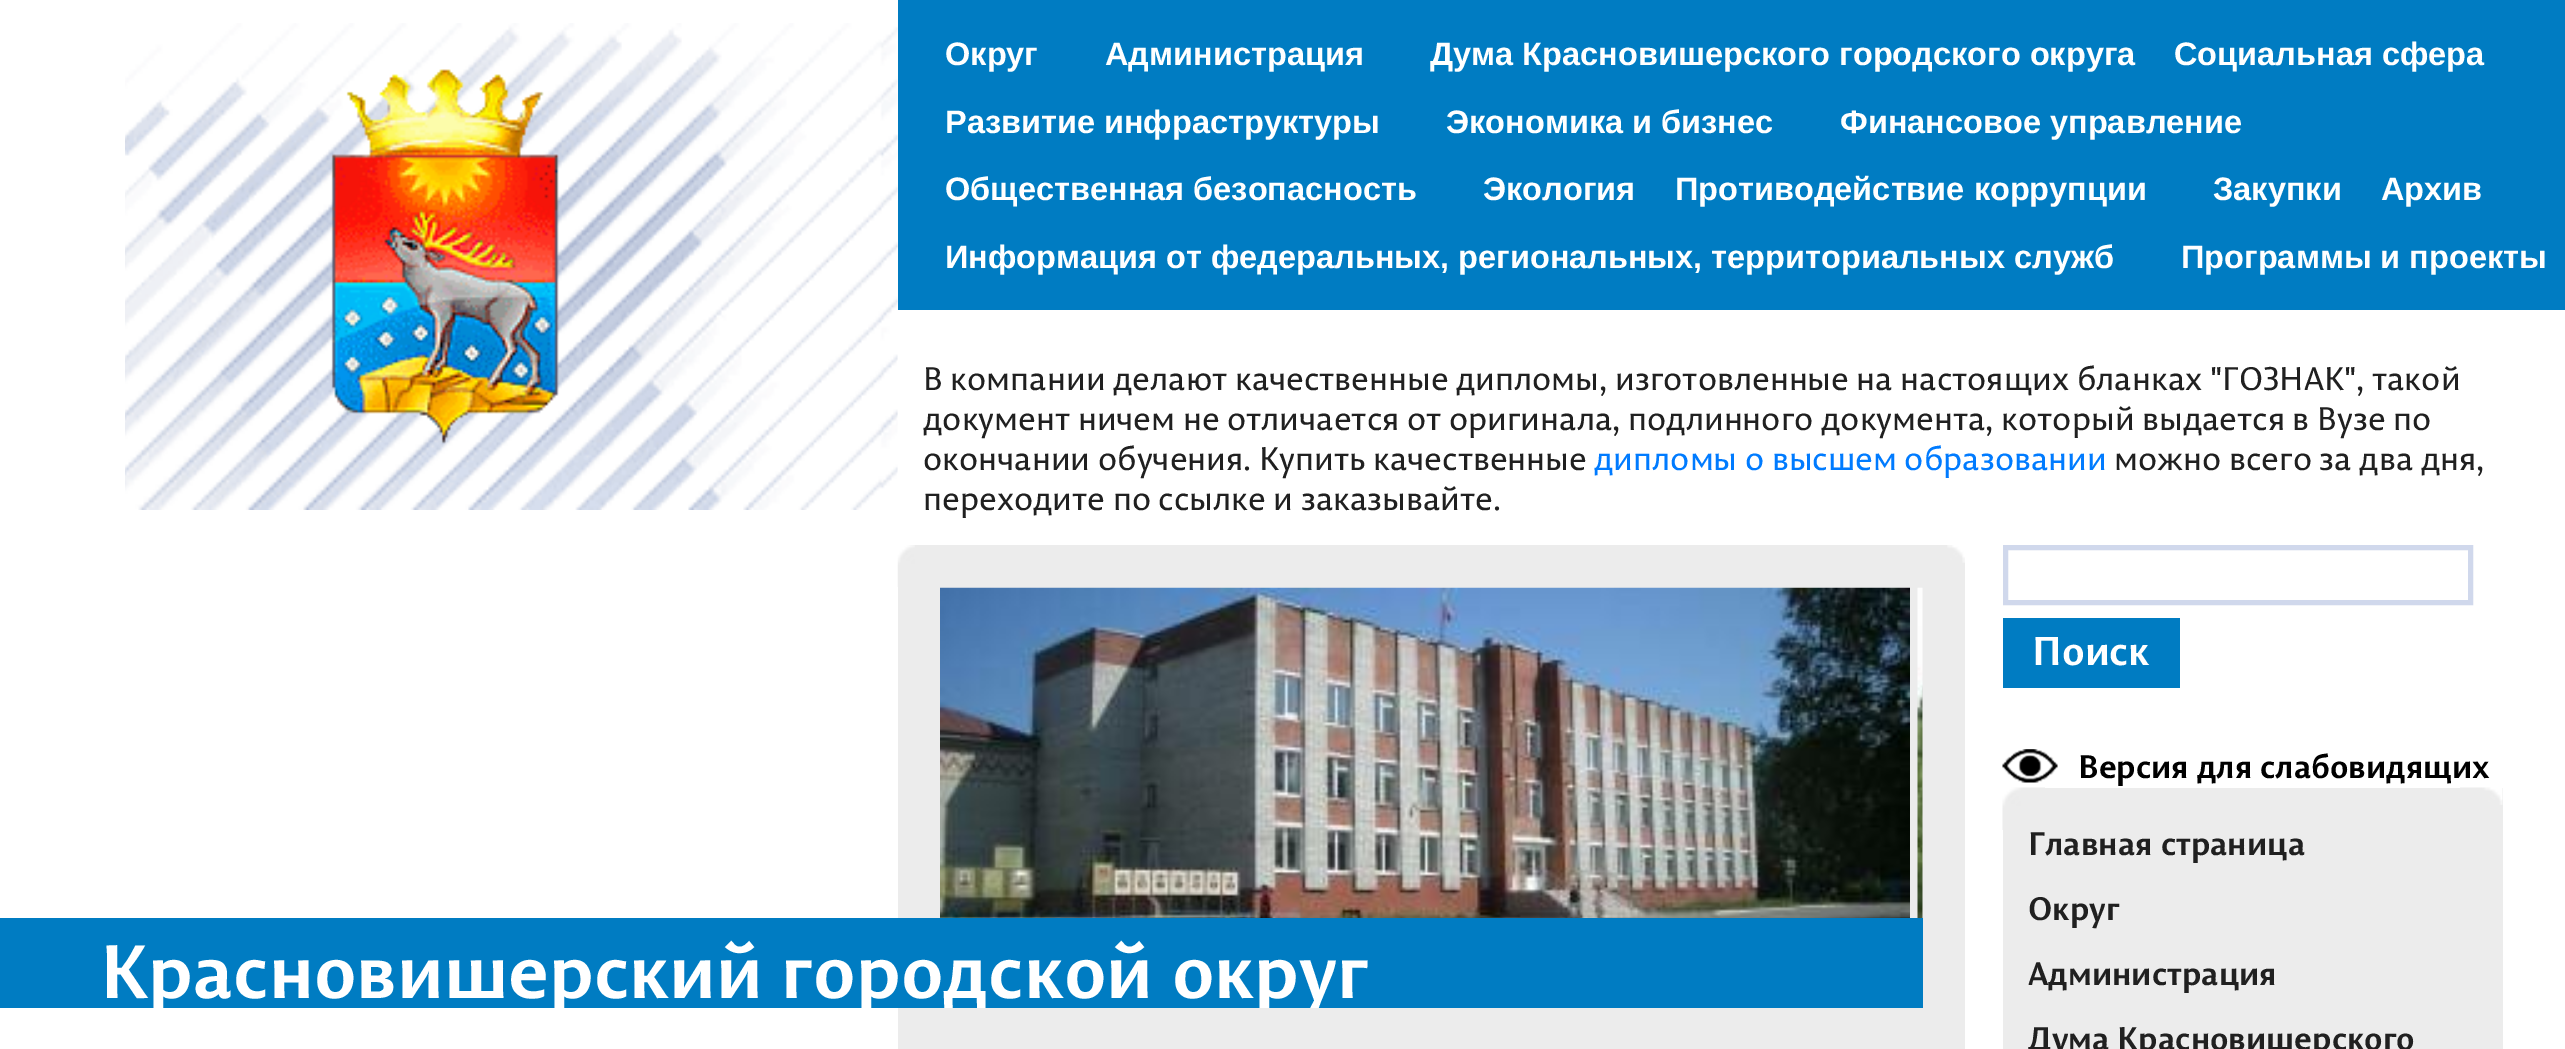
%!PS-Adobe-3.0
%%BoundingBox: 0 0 2565 1049
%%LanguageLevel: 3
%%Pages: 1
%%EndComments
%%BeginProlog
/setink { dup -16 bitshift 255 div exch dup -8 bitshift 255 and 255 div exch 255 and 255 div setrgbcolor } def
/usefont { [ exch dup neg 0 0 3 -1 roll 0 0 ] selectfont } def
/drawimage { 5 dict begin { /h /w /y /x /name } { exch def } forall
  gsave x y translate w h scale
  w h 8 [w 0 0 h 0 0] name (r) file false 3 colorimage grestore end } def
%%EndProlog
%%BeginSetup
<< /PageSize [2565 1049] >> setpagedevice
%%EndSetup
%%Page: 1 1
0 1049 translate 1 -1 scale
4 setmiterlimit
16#FFFFFF setink
0 0 2565 1049 rectfill
(img1.raw) 125 23 773 487 drawimage
(img2.raw) 331 69 228 375 drawimage
16#007CC2 setink
898 0 1667 310 rectfill
/LiberationSans-Bold 32.5 usefont
16#FFFFFF setink
[
    [(Округ) 945 65]
    [(Администрация) 1105 65]
    [(Дума Красновишерского городского округа) 1430 65]
    [(Социальная сфера) 2174 65]
    [(Развитие инфраструктуры) 945 133]
    [(Экономика и бизнес) 1446 133]
    [(Финансовое управление) 1840 133]
    [(Общественная безопасность) 945 200]
    [(Экология) 1483 200]
    [(Противодействие коррупции) 1675 200]
    [(Закупки) 2213 200]
    [(Архив) 2381 200]
    [(Информация от федеральных, региональных, территориальных служб) 945 268]
    [(Программы и проекты) 2181 268]
] { aload pop moveto show } forall
/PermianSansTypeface-Regular 32.5 usefont
16#202020 setink
[
    [(В компании делают качественные дипломы, изготовленные на настоящих бланках "ГОЗНАК", такой) 923 390]
    [(документ ничем не отличается от оригинала, подлинного документа, который выдается в Вузе по) 923 430]
    [(окончании обучения. Купить качественные) 923 470]
] { aload pop moveto show } forall
16#007BFF setink
1594 470 moveto (дипломы о высшем образовании) show
16#202020 setink
2114 470 moveto (можно всего за два дня,) show
923 510 moveto (переходите по ссылке и заказывайте.) show
16#ECECEC setink
898 545 1067 504 rectfill
(img3.raw) 897 545 18 42 drawimage
(img4.raw) 1947 545 18 18 drawimage
(img5.raw) 940 587 970 331 drawimage
(img6.raw) 1917 587 6 331 drawimage
16#D0D8EC setink
5 setlinewidth
2005.5 547.5 465 55 rectstroke
16#007CC2 setink
2003 618 177 70 rectfill
/PermianSansTypeface-Bold 40 usefont
16#FFFFFF setink
2032 665 moveto (Поиск) show
16#007CC2 setink
0 918 1923 90 rectfill
gsave
0 918 1923 90 rectclip
/PermianSansTypeface-Bold 75 usefont
16#FFFFFF setink
100 998 moveto (Красновишерский городской округ) show
grestore
(img7.raw) 2002 749 56 34 drawimage
/PermianSansTypeface-Bold 32.5 usefont
16#000000 setink
2078 778 moveto (Версия для слабовидящих) show
16#ECECEC setink
2003 788 500 261 rectfill
(img8.raw) 2002 787 43 43 drawimage
(img9.raw) 2460 787 43 18 drawimage
16#202020 setink
[
    [(Главная страница) 2028 855]
    [(Округ) 2028 920]
    [(Администрация) 2028 985]
    [(Дума Красновишерского) 2028 1050]
] { aload pop moveto show } forall
showpage
%%EOF
